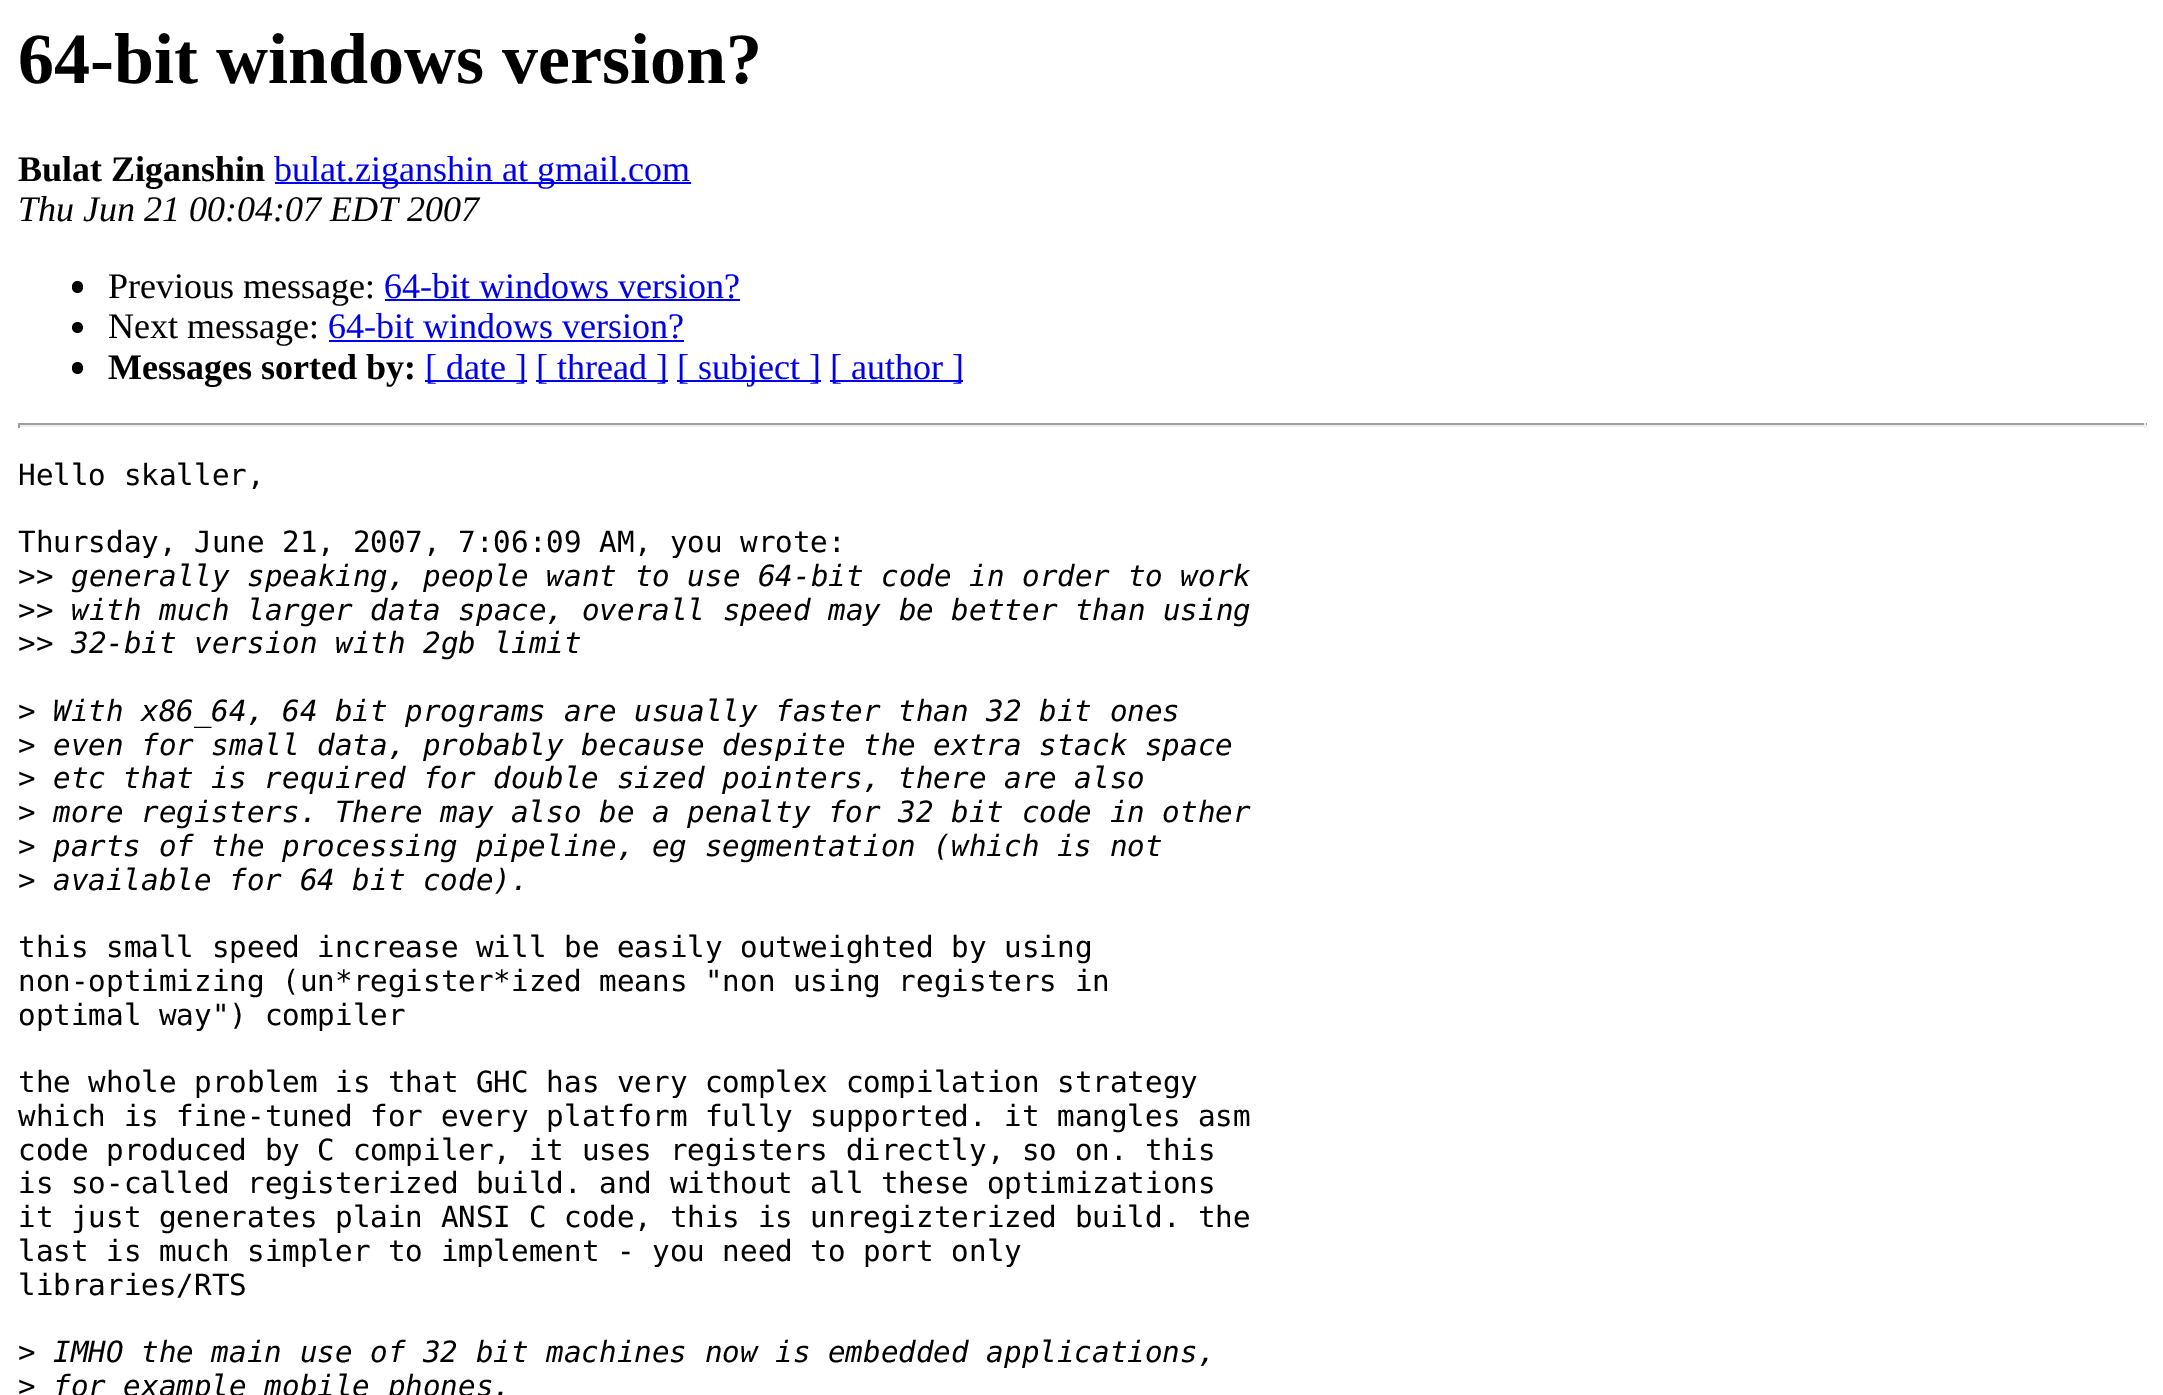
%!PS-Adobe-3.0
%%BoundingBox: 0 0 2163 1395
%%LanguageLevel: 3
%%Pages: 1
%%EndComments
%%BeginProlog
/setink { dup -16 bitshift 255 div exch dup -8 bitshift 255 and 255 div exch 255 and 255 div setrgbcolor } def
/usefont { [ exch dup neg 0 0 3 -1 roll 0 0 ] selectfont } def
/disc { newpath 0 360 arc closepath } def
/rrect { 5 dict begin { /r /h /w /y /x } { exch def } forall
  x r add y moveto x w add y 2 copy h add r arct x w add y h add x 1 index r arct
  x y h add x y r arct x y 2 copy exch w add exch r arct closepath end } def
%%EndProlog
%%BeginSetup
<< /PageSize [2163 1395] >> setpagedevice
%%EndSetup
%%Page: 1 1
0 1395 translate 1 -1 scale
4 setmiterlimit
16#FFFFFF setink
0 0 2163 1395 rectfill
/LiberationSerif-Bold 72 usefont
16#000000 setink
18 83 moveto (64-bit windows version?) show
/LiberationSerif-Bold 36 usefont
18 181 moveto (Bulat Ziganshin) show
16#0000EE setink
275 182 416 2 rectfill
/LiberationSerif-Regular 36 usefont
274 181 moveto (bulat.ziganshin at gmail.com) show
/LiberationSerif-Italic 36 usefont
16#000000 setink
18 221 moveto (Thu Jun 21 00:04:07 EDT 2007) show
72 281 11 12 5.5 rrect fill
/LiberationSerif-Regular 36 usefont
108 298 moveto (Previous message:) show
16#0000EE setink
384 298 moveto (64-bit windows version?) show
385 299 355 2 rectfill
16#000000 setink
77.5 327.5 5.5 disc fill
108 338 moveto (Next message:) show
16#0000EE setink
328 338 moveto (64-bit windows version?) show
329 340 355 2 rectfill
16#000000 setink
72 362 11 12 5.5 rrect fill
/LiberationSerif-Bold 36 usefont
108 379 moveto (Messages sorted by:) show
16#0000EE setink
425 380 102 2 rectfill
/LiberationSerif-Regular 36 usefont
425 379 moveto ([ date ]) show
536 380 132 2 rectfill
536 379 moveto ([ thread ]) show
677 380 144 2 rectfill
677 379 moveto ([ subject ]) show
830 380 133 2 rectfill
830 379 moveto ([ author ]) show
[
    [18 423 2129 2 16#9F9F9F]
    [2144 423 2 5 16#EEEEEE]
    [18 425 2129 2 16#EEEEEE]
    [18 423 2 5 16#9F9F9F]
] { aload pop setink rectfill } forall
/DejaVuSansMono-Regular 29.25 usefont
16#000000 setink
[
    [(Hello skaller,) 18 485]
    [(Thursday, June 21, 2007, 7:06:09 AM, you wrote:) 18 552]
    [(>>) 18 586]
] { aload pop moveto show } forall
/DejaVuSansMono-Italic 29.25 usefont
71 586 moveto (generally speaking, people want to use 64-bit code in order to work) show
/DejaVuSansMono-Regular 29.25 usefont
18 620 moveto (>>) show
/DejaVuSansMono-Italic 29.25 usefont
71 620 moveto (with much larger data space, overall speed may be better than using) show
/DejaVuSansMono-Regular 29.25 usefont
18 653 moveto (>>) show
/DejaVuSansMono-Italic 29.25 usefont
71 653 moveto (32-bit version with 2gb limit) show
/DejaVuSansMono-Regular 29.25 usefont
18 721 moveto (>) show
/DejaVuSansMono-Italic 29.25 usefont
53 721 moveto (With x86_64, 64 bit programs are usually faster than 32 bit ones) show
/DejaVuSansMono-Regular 29.25 usefont
18 755 moveto (>) show
/DejaVuSansMono-Italic 29.25 usefont
53 755 moveto (even for small data, probably because despite the extra stack space) show
/DejaVuSansMono-Regular 29.25 usefont
18 788 moveto (>) show
/DejaVuSansMono-Italic 29.25 usefont
53 788 moveto (etc that is required for double sized pointers, there are also) show
/DejaVuSansMono-Regular 29.25 usefont
18 822 moveto (>) show
/DejaVuSansMono-Italic 29.25 usefont
53 822 moveto (more registers. There may also be a penalty for 32 bit code in other) show
/DejaVuSansMono-Regular 29.25 usefont
18 856 moveto (>) show
/DejaVuSansMono-Italic 29.25 usefont
53 856 moveto (parts of the processing pipeline, eg segmentation \(which is not) show
/DejaVuSansMono-Regular 29.25 usefont
18 890 moveto (>) show
/DejaVuSansMono-Italic 29.25 usefont
53 890 moveto (available for 64 bit code\).) show
/DejaVuSansMono-Regular 29.25 usefont
[
    [(this small speed increase will be easily outweighted by using) 18 957]
    [(non-optimizing \(un*register*ized means "non using registers in) 18 991]
    [(optimal way"\) compiler) 18 1025]
    [(the whole problem is that GHC has very complex compilation strategy) 18 1092]
    [(which is fine-tuned for every platform fully supported. it mangles asm) 18 1126]
    [(code produced by C compiler, it uses registers directly, so on. this) 18 1160]
    [(is so-called registerized build. and without all these optimizations) 18 1193]
    [(it just generates plain ANSI C code, this is unregizterized build. the) 18 1227]
    [(last is much simpler to implement - you need to port only) 18 1261]
    [(libraries/RTS) 18 1295]
    [(>) 18 1362]
] { aload pop moveto show } forall
/DejaVuSansMono-Italic 29.25 usefont
53 1362 moveto (IMHO the main use of 32 bit machines now is embedded applications,) show
/DejaVuSansMono-Regular 29.25 usefont
18 1396 moveto (>) show
/DejaVuSansMono-Italic 29.25 usefont
53 1396 moveto (for example mobile phones.) show
showpage
%%EOF
